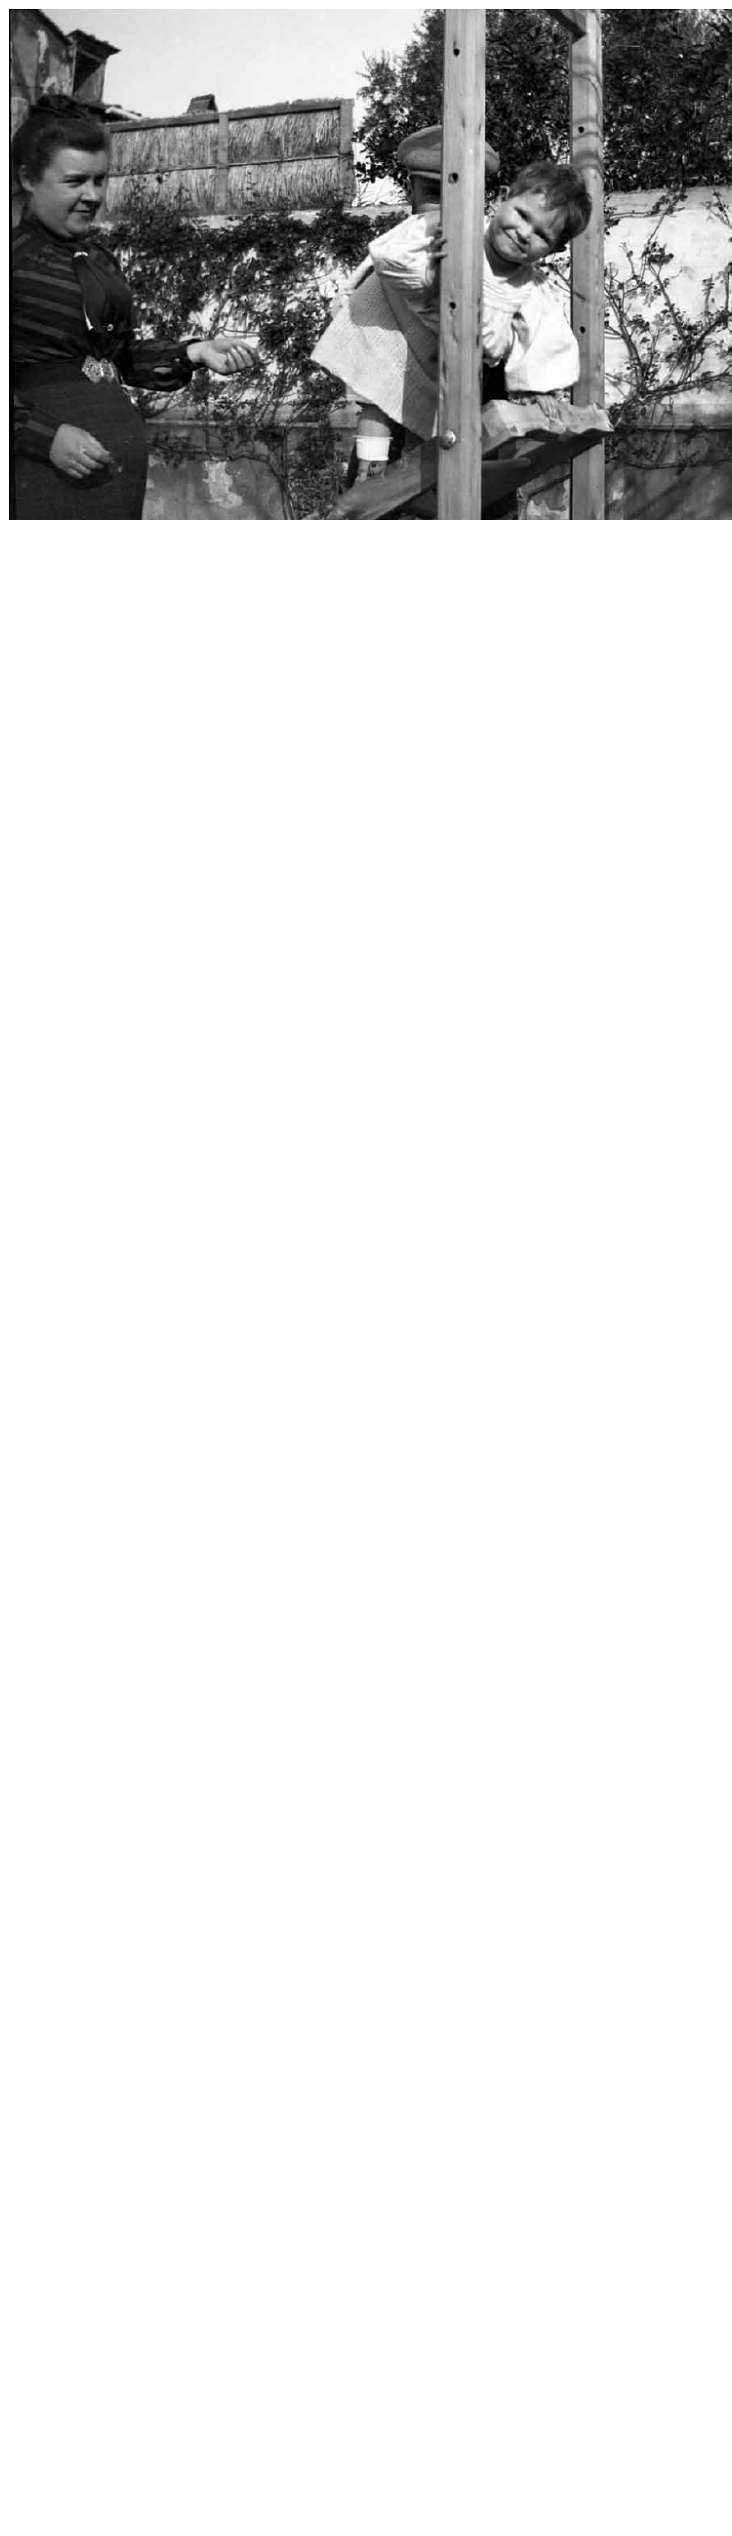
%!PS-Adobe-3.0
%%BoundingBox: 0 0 732 2536
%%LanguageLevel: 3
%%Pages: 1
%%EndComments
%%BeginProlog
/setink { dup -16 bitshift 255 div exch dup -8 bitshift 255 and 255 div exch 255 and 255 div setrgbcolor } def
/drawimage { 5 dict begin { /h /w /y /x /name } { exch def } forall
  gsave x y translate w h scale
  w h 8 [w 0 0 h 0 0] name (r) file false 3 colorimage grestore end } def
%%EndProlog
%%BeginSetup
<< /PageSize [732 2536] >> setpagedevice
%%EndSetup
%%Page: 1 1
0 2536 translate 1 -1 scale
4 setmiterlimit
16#FFFFFF setink
0 0 732 2536 rectfill
(img1.raw) 9 9 723 511 drawimage
showpage
%%EOF
